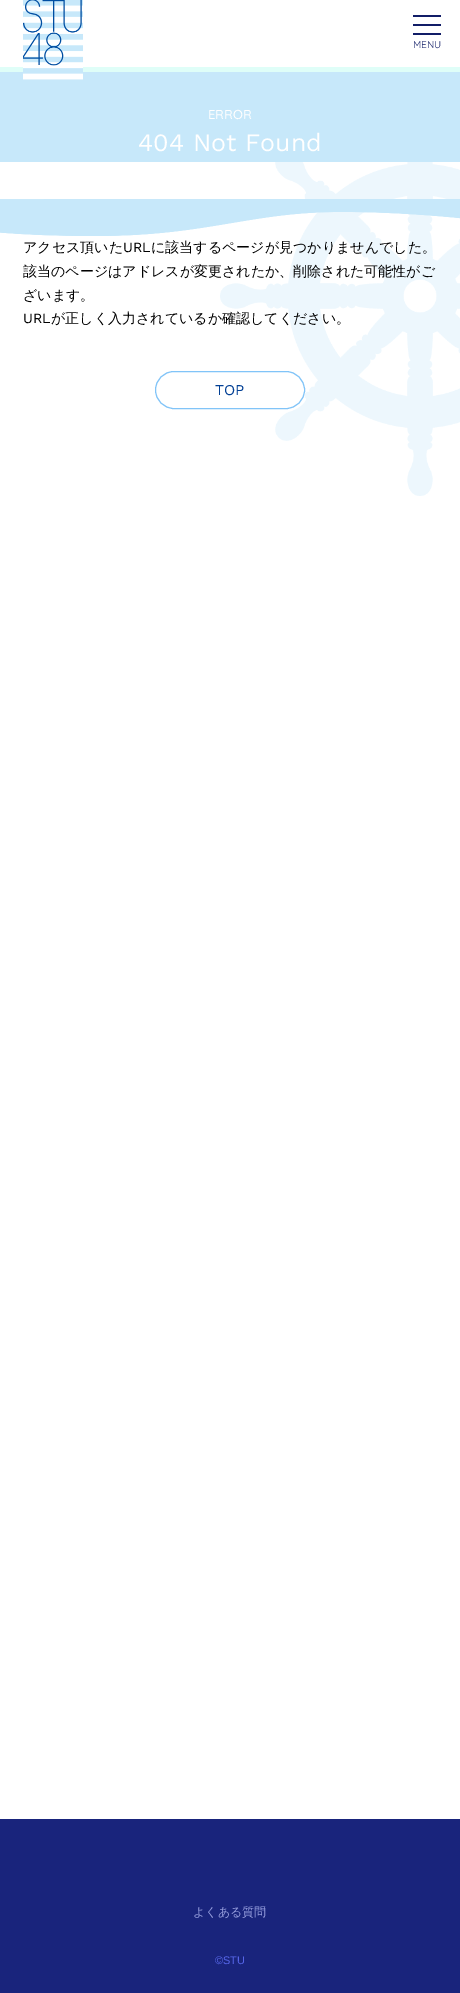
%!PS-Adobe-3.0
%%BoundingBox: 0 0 460 1993
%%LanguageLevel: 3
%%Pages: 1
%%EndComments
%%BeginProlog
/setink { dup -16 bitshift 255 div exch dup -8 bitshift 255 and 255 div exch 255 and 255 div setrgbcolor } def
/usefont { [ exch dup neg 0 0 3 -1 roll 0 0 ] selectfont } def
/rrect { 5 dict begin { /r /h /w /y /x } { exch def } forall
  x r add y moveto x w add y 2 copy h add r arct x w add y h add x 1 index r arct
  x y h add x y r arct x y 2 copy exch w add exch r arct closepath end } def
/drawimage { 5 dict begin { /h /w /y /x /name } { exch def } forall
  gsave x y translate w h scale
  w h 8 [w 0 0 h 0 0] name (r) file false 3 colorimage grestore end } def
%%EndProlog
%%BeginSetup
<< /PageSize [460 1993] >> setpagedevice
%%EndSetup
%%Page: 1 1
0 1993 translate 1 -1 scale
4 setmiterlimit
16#FFFFFF setink
0 0 460 1993 rectfill
16#DFFEF8 setink
0 67 460 5 rectfill
16#C7E8FA setink
0 72 460 90 rectfill
(img1.raw) 23 0 60 80 drawimage
[
    [413 15 28 2 16#111D67]
    [413 24 28 2 16#111D67]
    [413 33 28 2 16#111D67]
] { aload pop setink rectfill } forall
/Quicksand-Regular 10 usefont
413 48 moveto (MENU) show
/Quicksand-Medium 13 usefont
16#FFFFFF setink
208 119 moveto (ERROR) show
/WorkSans-Regular 25 usefont
138 151 moveto (404 Not Found) show
(img2.raw) 220 162 240 334 drawimage
(img3.raw) 0 199 460 37 drawimage
/WenQuanYiZenHei-Medium 14 usefont
16#000000 setink
23 252 moveto (アクセス頂いた) show
/WorkSans-Regular 14 usefont
123 252 moveto (URL) show
/WenQuanYiZenHei-Medium 14 usefont
[
    [(に該当するページが見つかりませんでした。) 151 252]
    [(該当のページはアドレスが変更されたか、削除された可能性がご) 23 276]
    [(ざいます。) 23 300]
] { aload pop moveto show } forall
/WorkSans-Regular 14 usefont
23 323 moveto (URL) show
/WenQuanYiZenHei-Medium 14 usefont
51 323 moveto (が正しく入力されているか確認してください。) show
16#81C4F8 setink
155.5 371.5 149 37 18.5 rrect stroke
/WorkSans-Regular 15 usefont
16#024095 setink
215 395 moveto (TOP) show
16#19247C setink
0 1819 460 174 rectfill
/WenQuanYiZenHei-Medium 12 usefont
16#969EDE setink
193 1916 moveto (よくある質問) show
/LiberationSans-Regular 11 usefont
16#5666E8 setink
215 1964 moveto (©STU) show
showpage
%%EOF
